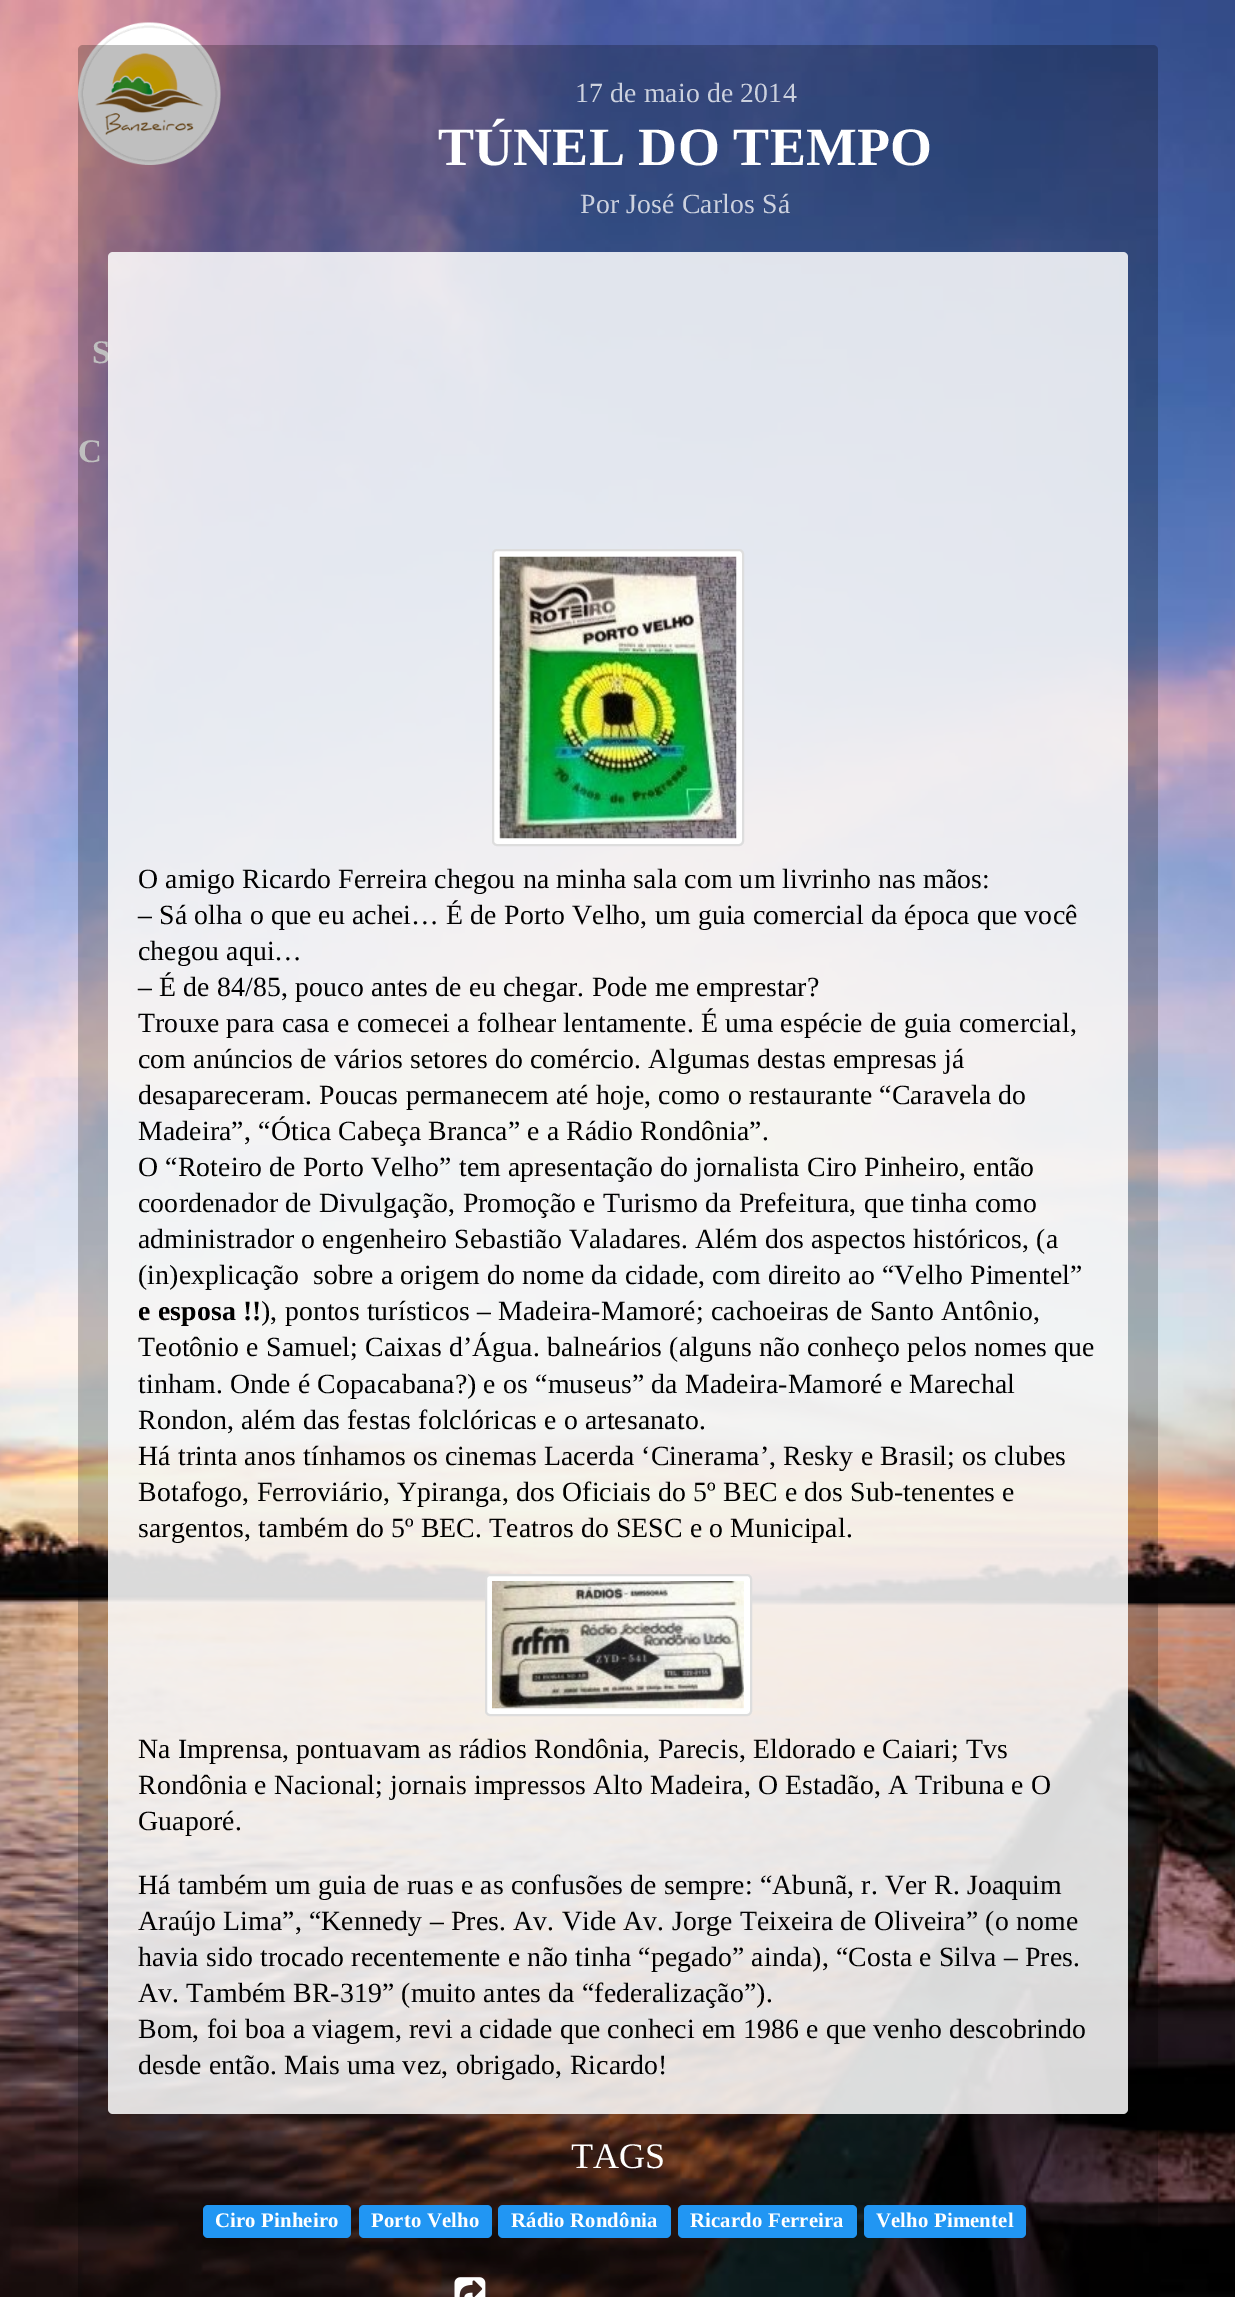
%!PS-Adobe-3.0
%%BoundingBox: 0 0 1235 2297
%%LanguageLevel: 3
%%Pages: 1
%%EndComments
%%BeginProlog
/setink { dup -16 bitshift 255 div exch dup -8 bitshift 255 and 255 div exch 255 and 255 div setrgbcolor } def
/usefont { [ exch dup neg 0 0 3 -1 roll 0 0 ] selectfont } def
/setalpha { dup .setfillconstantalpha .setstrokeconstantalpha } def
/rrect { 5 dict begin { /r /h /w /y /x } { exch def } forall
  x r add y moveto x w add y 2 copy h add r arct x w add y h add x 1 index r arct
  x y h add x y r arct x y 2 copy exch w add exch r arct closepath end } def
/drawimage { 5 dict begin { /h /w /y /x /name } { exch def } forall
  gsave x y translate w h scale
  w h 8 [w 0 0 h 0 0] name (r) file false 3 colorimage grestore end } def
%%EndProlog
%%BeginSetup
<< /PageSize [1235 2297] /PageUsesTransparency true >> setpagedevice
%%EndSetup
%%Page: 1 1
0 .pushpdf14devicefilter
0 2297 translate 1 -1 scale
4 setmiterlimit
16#FFFFFF setink
0 0 1235 2297 rectfill
(img1.raw) 0 0 1235 2297 drawimage
(img2.raw) 78 22 143 143 drawimage
/LiberationSerif-Bold 33 usefont
92 363 moveto 0.15 0 (S) ashow
78 462 moveto 0.15 0 (C) ashow
0.25 setalpha
16#000000 setink
78 45 1080 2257 5 rrect fill
/LiberationSerif-Regular 27.75 usefont
1 setalpha
16#CCD1DE setink
575 102 moveto 0.15 0 (17 de maio de 2014) ashow
/LiberationSerif-Bold 54 usefont
16#FFFFFF setink
438 165 moveto 0.15 0 (TÚNEL DO TEMPO) ashow
/LiberationSerif-Regular 27.75 usefont
16#CCD1DE setink
580 213 moveto 0.15 0 (Por José Carlos Sá) ashow
0.85 setalpha
16#FFFFFF setink
108 252 1020 1862 5 rrect fill
1 setalpha
493 550 250 295 4 rrect gsave fill grestore
16#DDDDDD setink
2 setlinewidth
stroke
(img3.raw) 499 556 238 283 drawimage
16#000000 setink
138 888 moveto 0.15 0 (O amigo Ricardo Ferreira chegou na minha sala com um livrinho nas mãos:) ashow
138 924 moveto 0.15 0 (– Sá olha o que eu achei… É de Porto Velho, um guia comercial da época que você) ashow
138 960 moveto 0.15 0 (chegou aqui…) ashow
138 996 moveto 0.15 0 (– É de 84/85, pouco antes de eu chegar. Pode me emprestar?) ashow
138 1032 moveto 0.15 0 (Trouxe para casa e comecei a folhear lentamente. É uma espécie de guia comercial,) ashow
138 1068 moveto 0.15 0 (com anúncios de vários setores do comércio. Algumas destas empresas já) ashow
138 1104 moveto 0.15 0 (desapareceram. Poucas permanecem até hoje, como o restaurante “Caravela do) ashow
138 1140 moveto 0.15 0 (Madeira”, “Ótica Cabeça Branca” e a Rádio Rondônia”.) ashow
138 1176 moveto 0.15 0 (O “Roteiro de Porto Velho” tem apresentação do jornalista Ciro Pinheiro, então) ashow
138 1212 moveto 0.15 0 (coordenador de Divulgação, Promoção e Turismo da Prefeitura, que tinha como) ashow
138 1248 moveto 0.15 0 (administrador o engenheiro Sebastião Valadares. Além dos aspectos históricos, \(a) ashow
138 1284 moveto 0.15 0 (\(in\)explicação  sobre a origem do nome da cidade, com direito ao “Velho Pimentel”) ashow
/LiberationSerif-Bold 27.75 usefont
138 1320 moveto 0.15 0 (e esposa !!) ashow
/LiberationSerif-Regular 27.75 usefont
261 1320 moveto 0.15 0 (\), pontos turísticos – Madeira-Mamoré; cachoeiras de Santo Antônio,) ashow
138 1356 moveto 0.15 0 (Teotônio e Samuel; Caixas d’Água. balneários \(alguns não conheço pelos nomes que) ashow
138 1393 moveto 0.15 0 (tinham. Onde é Copacabana?\) e os “museus” da Madeira-Mamoré e Marechal) ashow
138 1429 moveto 0.15 0 (Rondon, além das festas folclóricas e o artesanato.) ashow
138 1465 moveto 0.15 0 (Há trinta anos tínhamos os cinemas Lacerda ‘Cinerama’, Resky e Brasil; os clubes) ashow
138 1501 moveto 0.15 0 (Botafogo, Ferroviário, Ypiranga, dos Oficiais do 5º BEC e dos Sub-tenentes e) ashow
138 1537 moveto 0.15 0 (sargentos, também do 5º BEC. Teatros do SESC e o Municipal.) ashow
16#FFFFFF setink
486 1575 265 140 4 rrect gsave fill grestore
16#DDDDDD setink
stroke
(img4.raw) 492 1581 252 128 drawimage
16#000000 setink
138 1758 moveto 0.15 0 (Na Imprensa, pontuavam as rádios Rondônia, Parecis, Eldorado e Caiari; Tvs) ashow
138 1794 moveto 0.15 0 (Rondônia e Nacional; jornais impressos Alto Madeira, O Estadão, A Tribuna e O) ashow
138 1830 moveto 0.15 0 (Guaporé.) ashow
138 1894 moveto 0.15 0 (Há também um guia de ruas e as confusões de sempre: “Abunã, r. Ver R. Joaquim) ashow
138 1930 moveto 0.15 0 (Araújo Lima”, “Kennedy – Pres. Av. Vide Av. Jorge Teixeira de Oliveira” \(o nome) ashow
138 1966 moveto 0.15 0 (havia sido trocado recentemente e não tinha “pegado” ainda\), “Costa e Silva – Pres.) ashow
138 2002 moveto 0.15 0 (Av. Também BR-319” \(muito antes da “federalização”\).) ashow
138 2038 moveto 0.15 0 (Bom, foi boa a viagem, revi a cidade que conheci em 1986 e que venho descobrindo) ashow
138 2074 moveto 0.15 0 (desde então. Mais uma vez, obrigado, Ricardo!) ashow
/LiberationSerif-Regular 36 usefont
16#FFFFFF setink
571 2168 moveto 0.15 0 (TAGS) ashow
16#2196F3 setink
203 2205 148 33 5 rrect fill
/LiberationSerif-Bold 20.75 usefont
16#FFFFFF setink
215 2227 moveto 0.15 0 (Ciro Pinheiro) ashow
16#2196F3 setink
359 2205 133 33 5 rrect fill
16#FFFFFF setink
371 2227 moveto 0.15 0 (Porto Velho) ashow
16#2196F3 setink
498 2205 173 33 5 rrect fill
16#FFFFFF setink
511 2227 moveto 0.15 0 (Rádio Rondônia) ashow
16#2196F3 setink
678 2205 179 33 5 rrect fill
16#FFFFFF setink
690 2227 moveto 0.15 0 (Ricardo Ferreira) ashow
16#2196F3 setink
864 2205 162 33 5 rrect fill
16#FFFFFF setink
876 2227 moveto 0.15 0 (Velho Pimentel) ashow
(img5.raw) 454 2277 32 20 drawimage
.poppdf14devicefilter showpage
%%EOF
